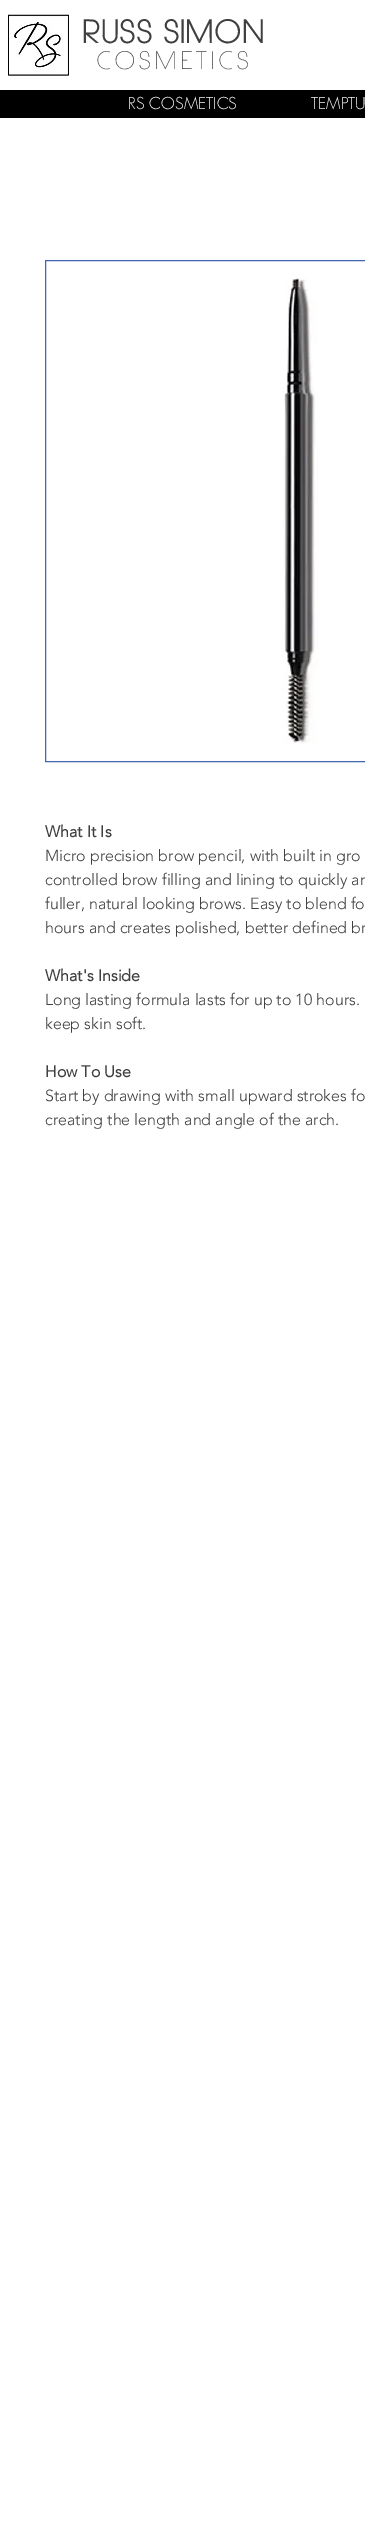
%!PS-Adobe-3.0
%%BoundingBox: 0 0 365 2538
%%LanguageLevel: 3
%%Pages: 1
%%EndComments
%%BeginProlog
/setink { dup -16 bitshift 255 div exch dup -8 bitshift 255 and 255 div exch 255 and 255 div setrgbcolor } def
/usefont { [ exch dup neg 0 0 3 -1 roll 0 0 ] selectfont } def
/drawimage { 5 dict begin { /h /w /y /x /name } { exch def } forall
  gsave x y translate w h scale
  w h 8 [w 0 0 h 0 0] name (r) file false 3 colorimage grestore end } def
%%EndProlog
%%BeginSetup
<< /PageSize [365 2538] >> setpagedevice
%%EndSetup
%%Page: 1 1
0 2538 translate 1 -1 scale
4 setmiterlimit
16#FFFFFF setink
0 0 365 2538 rectfill
(img1.raw) 8 14 61 62 drawimage
/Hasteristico-Bold 32 usefont
16#404041 setink
83 43 moveto 1.6 0 (RUSS SIMON) ashow
/Hasteristico-Light 24 usefont
97 69 moveto 4.75 0 (COSMETICS) ashow
16#000000 setink
0 90 365 28 rectfill
/futura-Light 16 usefont
16#FAFAFA setink
128 109 moveto (RS COSMETICS) show
311 109 moveto (TEMPTU) show
16#4564B3 setink
45.5 260.5 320 501 rectstroke
(img2.raw) 282 277 36 467 drawimage
/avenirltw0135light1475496-Bold 16 usefont
16#404041 setink
45 837 moveto (What It Is) show
/avenirltw0135light1475496-Light 16 usefont
[
    [(Micro precision brow pencil, with built in gro) 45 861]
    [(controlled brow filling and lining to quickly an) 45 885]
    [(fuller, natural looking brows. Easy to blend fo) 45 909]
    [(hours and creates polished, better defined br) 45 933]
] { aload pop moveto show } forall
/avenirltw0135light1475496-Bold 16 usefont
45 981 moveto (What's Inside) show
/avenirltw0135light1475496-Light 16 usefont
45 1005 moveto (Long lasting formula lasts for up to 10 hours.) show
45 1029 moveto (keep skin soft.) show
/avenirltw0135light1475496-Bold 16 usefont
45 1077 moveto (How To Use) show
/avenirltw0135light1475496-Light 16 usefont
45 1101 moveto (Start by drawing with small upward strokes fo) show
45 1125 moveto (creating the length and angle of the arch.) show
showpage
%%EOF
